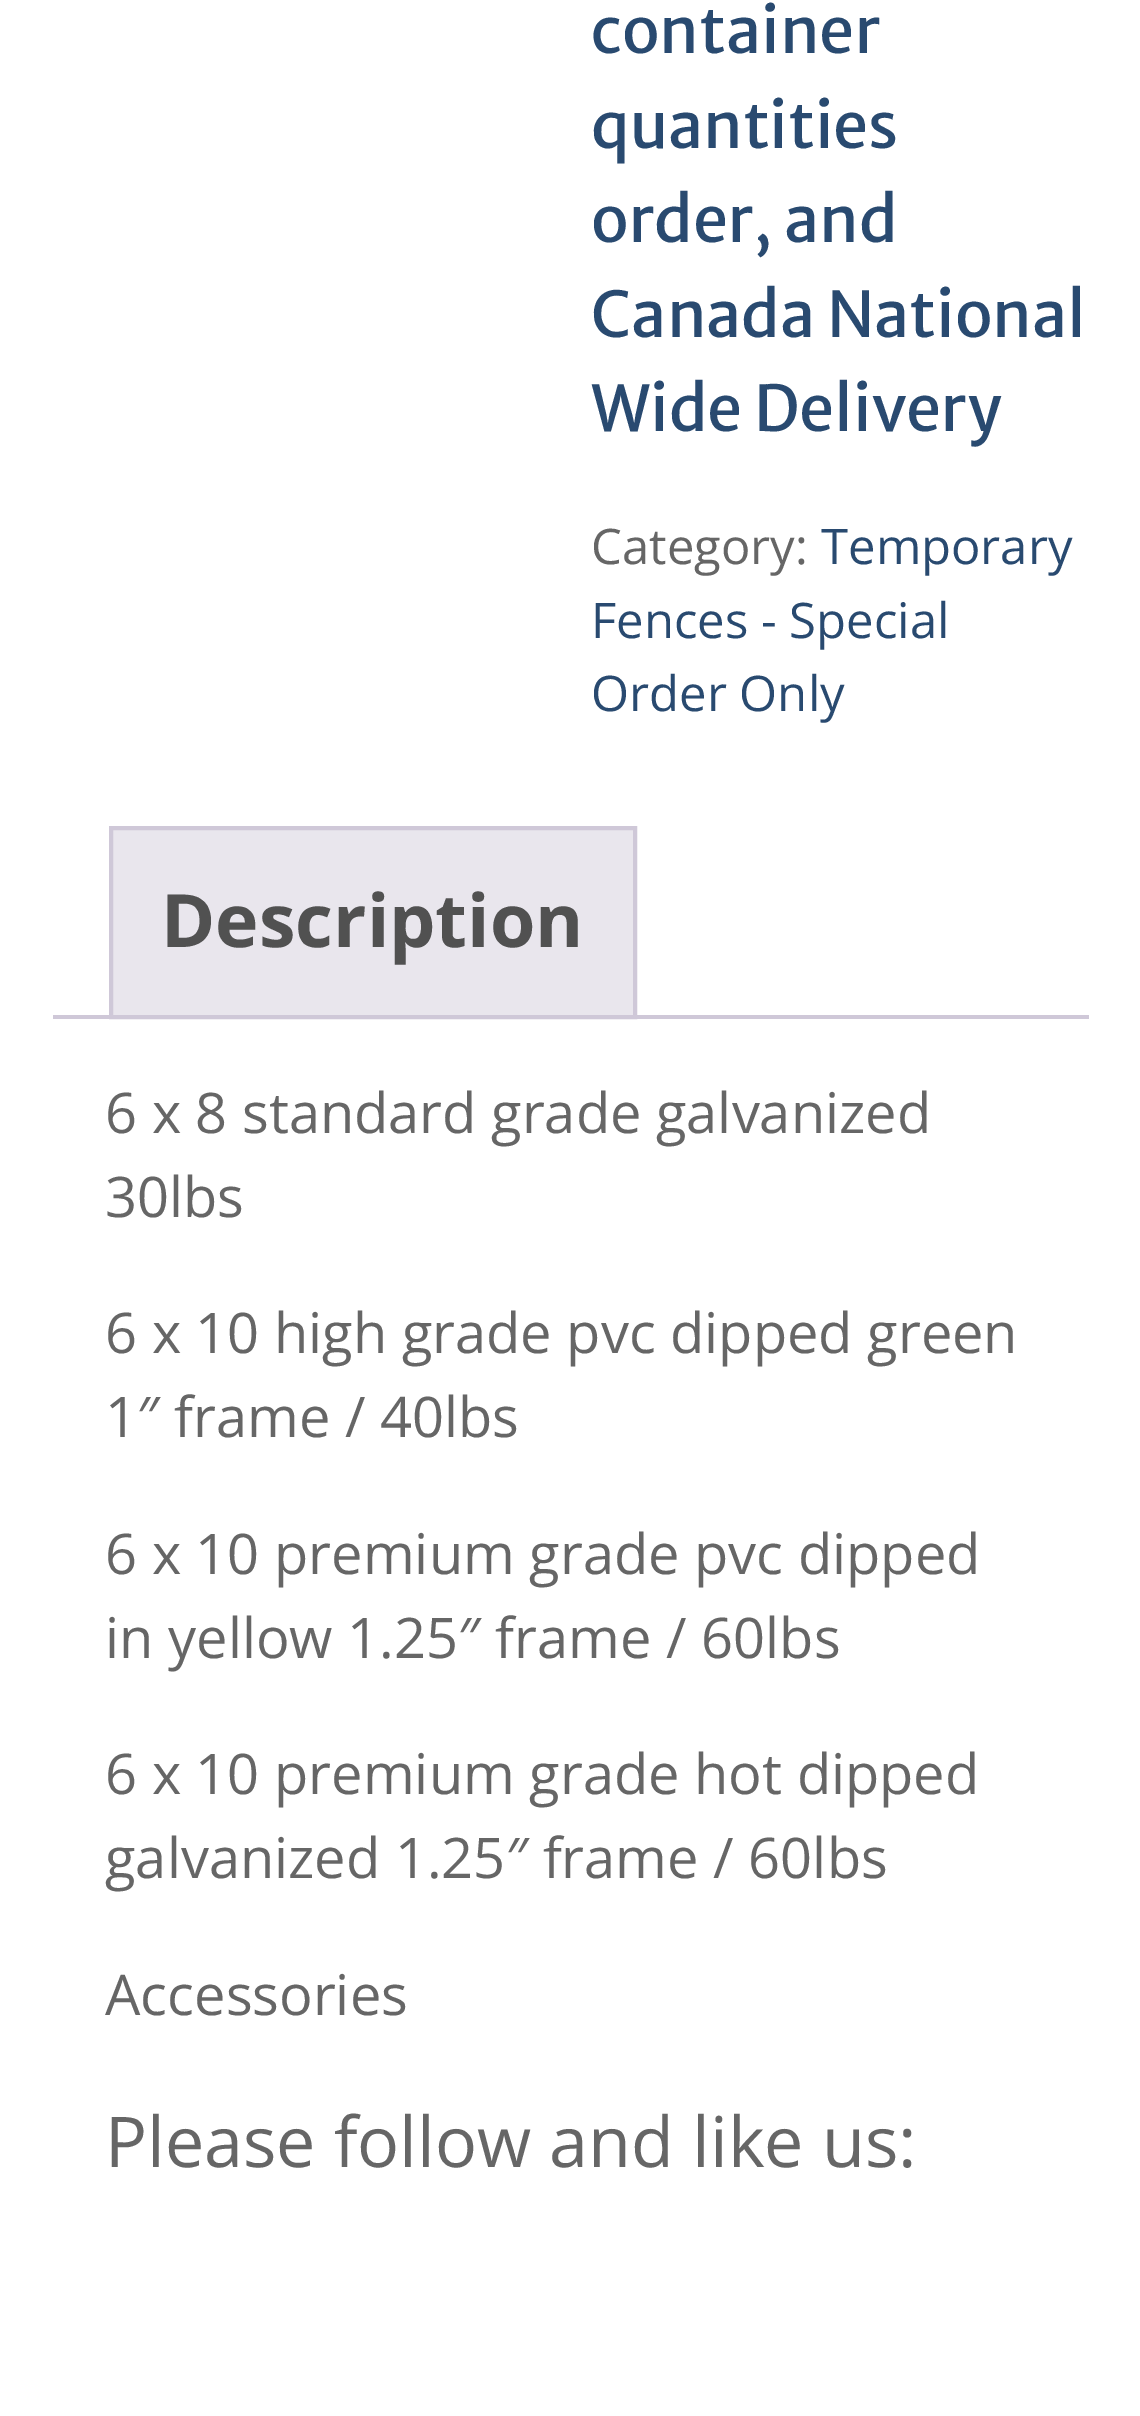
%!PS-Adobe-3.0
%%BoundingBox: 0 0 1140 2416
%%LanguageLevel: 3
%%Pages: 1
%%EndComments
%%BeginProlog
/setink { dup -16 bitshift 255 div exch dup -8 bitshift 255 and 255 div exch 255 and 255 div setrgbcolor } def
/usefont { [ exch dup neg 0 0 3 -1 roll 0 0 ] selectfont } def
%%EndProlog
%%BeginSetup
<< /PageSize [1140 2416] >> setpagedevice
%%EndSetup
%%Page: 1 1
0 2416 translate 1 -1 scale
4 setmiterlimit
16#FFFFFF setink
0 0 1140 2416 rectfill
/MerriweatherSans-Regular 63 usefont
16#294A70 setink
[
    [(container) 591 53]
    [(quantities) 591 148]
    [(order, and) 591 242]
    [(Canada National) 591 337]
    [(Wide Delivery) 591 431]
] { aload pop moveto show } forall
/OpenSans-Regular 49 usefont
16#666666 setink
591 564 moveto (Category:) show
16#294A70 setink
[
    [(Temporary) 821 564]
    [(Fences - Special) 591 638]
    [(Order Only) 591 711]
] { aload pop moveto show } forall
16#E9E6ED setink
111 828 moveto 635 828 lineto 635 1017 lineto 111 1017 lineto closepath gsave fill grestore
16#CFC8D8 setink
4 setlinewidth
stroke
/OpenSans-Bold 73.5 usefont
16#515151 setink
161 947 moveto (Description) show
16#CFC8D8 setink
53 1015 1036 4 rectfill
/OpenSans-Regular 56 usefont
16#666666 setink
[
    [(6 x 8 standard grade galvanized) 105 1133]
    [(30lbs) 105 1217]
    [(6 x 10 high grade pvc dipped green) 105 1353]
    [(1″ frame / 40lbs) 105 1437]
    [(6 x 10 premium grade pvc dipped) 105 1574]
    [(in yellow 1.25″ frame / 60lbs) 105 1658]
    [(6 x 10 premium grade hot dipped) 105 1794]
    [(galvanized 1.25″ frame / 60lbs) 105 1878]
    [(Accessories) 105 2015]
] { aload pop moveto show } forall
/OpenSans-Regular 70 usefont
105 2167 moveto (Please follow and like us:) show
showpage
%%EOF
